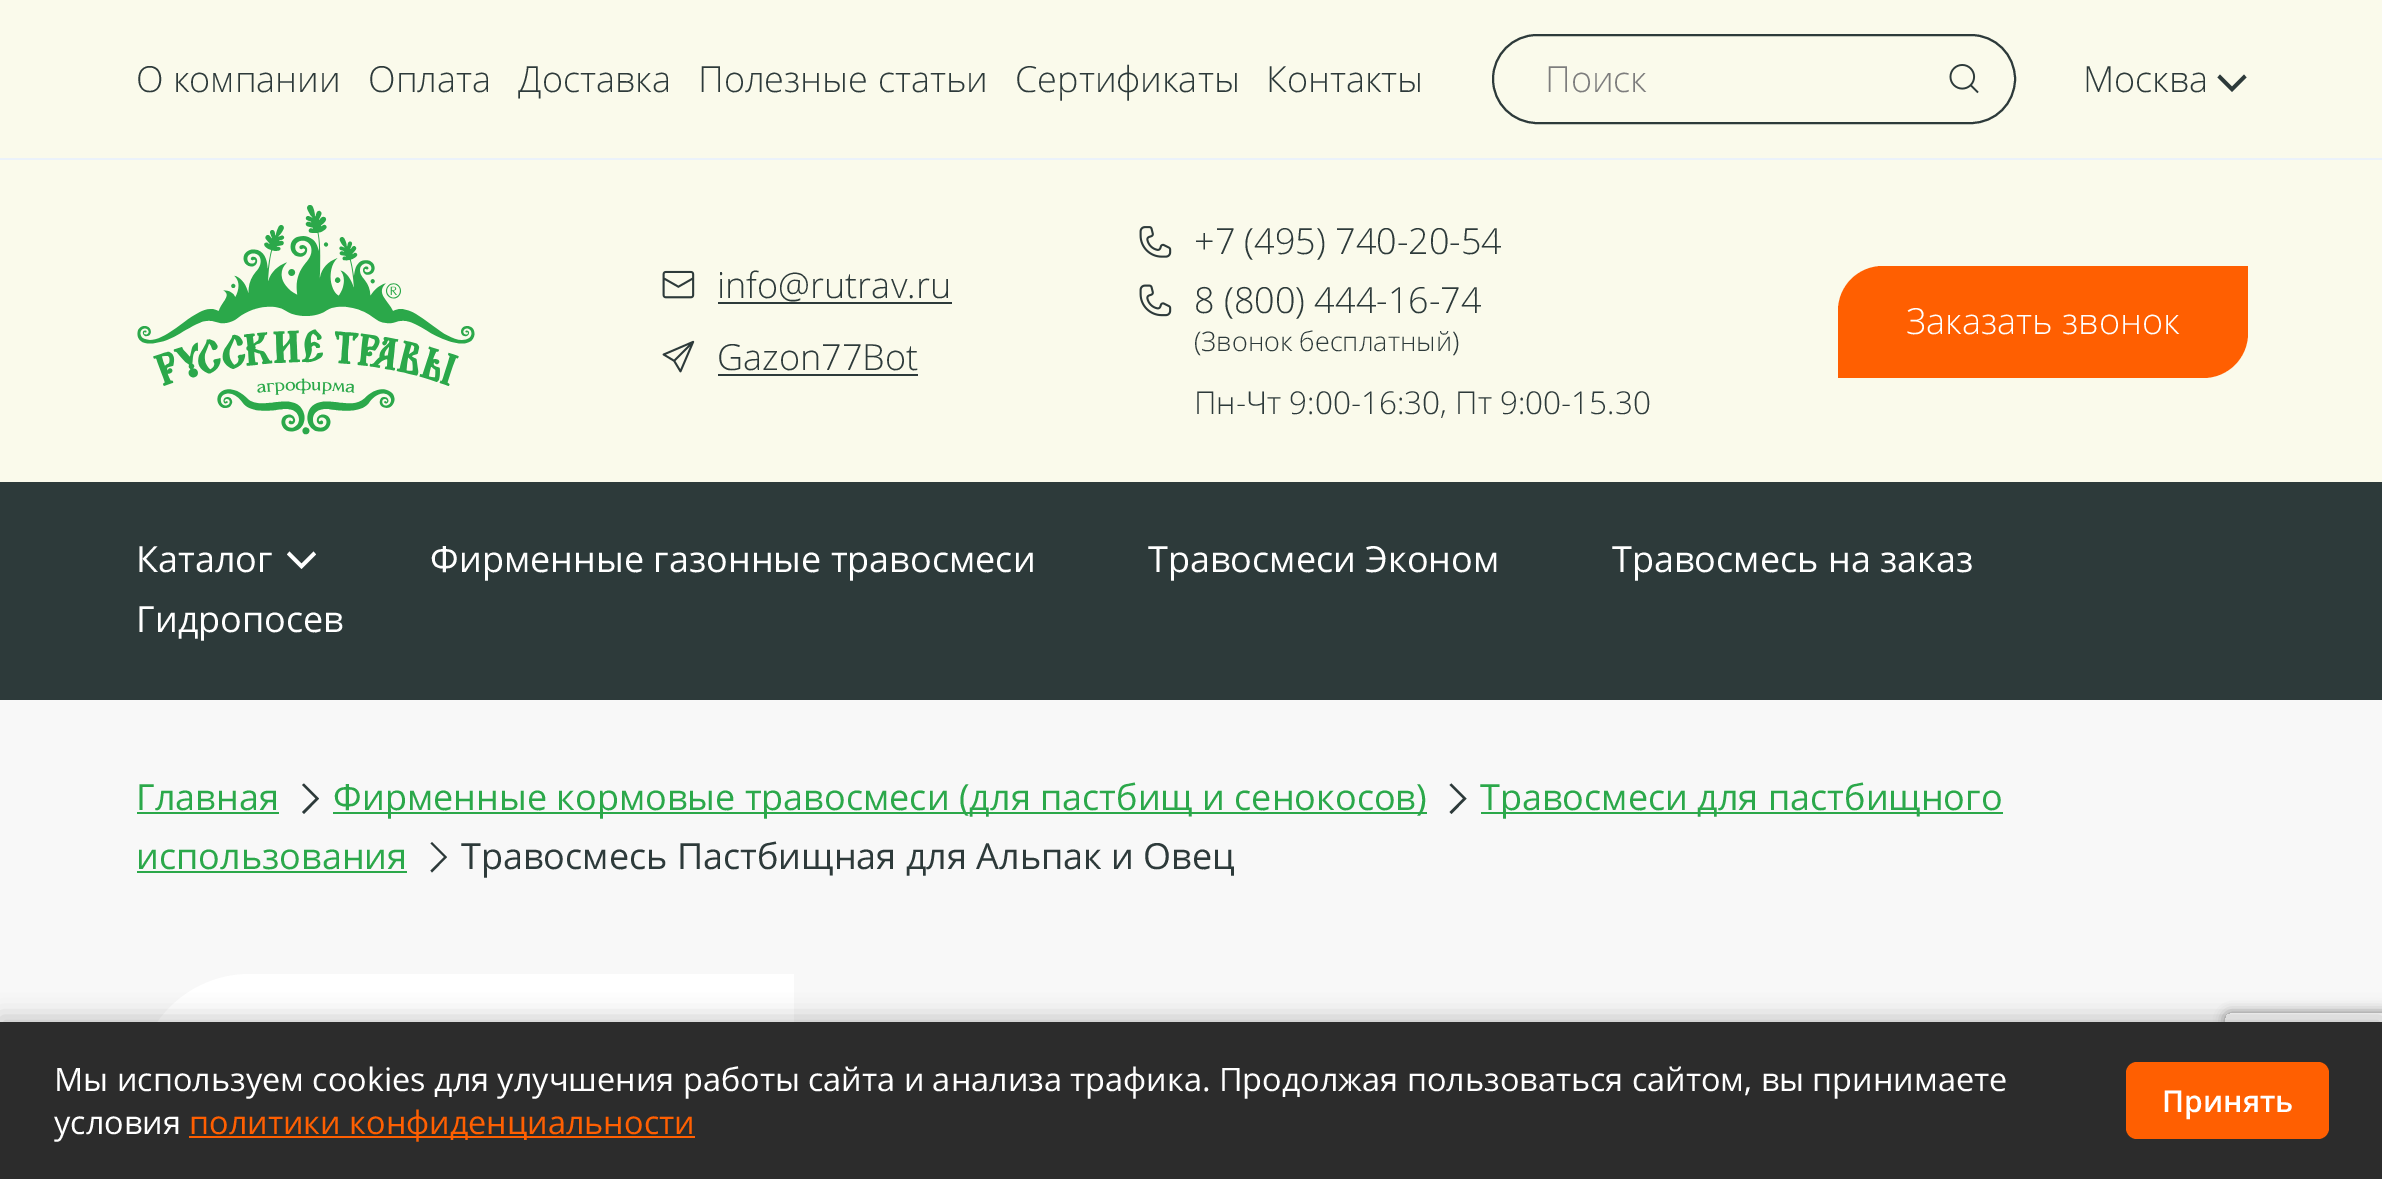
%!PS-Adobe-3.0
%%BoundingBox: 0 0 2382 1179
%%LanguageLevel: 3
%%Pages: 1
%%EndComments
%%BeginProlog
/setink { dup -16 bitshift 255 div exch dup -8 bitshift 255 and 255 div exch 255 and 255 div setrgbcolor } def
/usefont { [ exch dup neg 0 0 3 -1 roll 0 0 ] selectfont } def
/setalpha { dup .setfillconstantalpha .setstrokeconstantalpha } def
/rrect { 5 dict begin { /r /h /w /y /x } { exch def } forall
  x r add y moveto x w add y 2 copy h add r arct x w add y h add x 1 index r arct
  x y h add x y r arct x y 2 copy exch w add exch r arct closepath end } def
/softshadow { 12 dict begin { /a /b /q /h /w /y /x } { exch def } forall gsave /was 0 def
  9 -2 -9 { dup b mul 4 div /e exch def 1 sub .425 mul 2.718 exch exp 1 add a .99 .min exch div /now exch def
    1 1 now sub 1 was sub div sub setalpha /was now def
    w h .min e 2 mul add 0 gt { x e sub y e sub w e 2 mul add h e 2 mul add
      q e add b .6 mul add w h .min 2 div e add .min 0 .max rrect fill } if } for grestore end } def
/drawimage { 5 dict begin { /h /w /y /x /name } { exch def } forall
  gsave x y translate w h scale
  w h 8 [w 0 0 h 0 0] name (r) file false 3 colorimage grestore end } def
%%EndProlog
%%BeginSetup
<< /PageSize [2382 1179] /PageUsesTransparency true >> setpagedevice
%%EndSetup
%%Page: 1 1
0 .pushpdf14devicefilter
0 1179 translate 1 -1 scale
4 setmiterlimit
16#FAFAEB setink
0 0 2382 1179 rectfill
16#EBF2FA setink
0 158 2382 2 rectfill
/OpenSans-Light 36 usefont
16#2D3A3A setink
[
    [(О компании) 136 92]
    [(Оплата) 368 92]
    [(Доставка) 518 92]
    [(Полезные статьи) 698 92]
    [(Сертификаты) 1015 92]
    [(Контакты) 1266 92]
] { aload pop moveto show } forall
2 setlinewidth
1493 35 522 88 44 rrect stroke
16#7D7D7D setink
1545 92 moveto (Поиск) show
(img1.raw) 1949 64 30 30 drawimage
16#2D3A3A setink
2083 92 moveto (Москва) show
2246.5 77.5 moveto 2232 92 lineto 2217.5 77.5 lineto 2220 74.5 lineto 2232 86.5 lineto 2244 74.5 lineto closepath eofill
(img2.raw) 137 205 338 230 drawimage
(img3.raw) 662 270 33 29 drawimage
717 298 moveto (info@rutrav.ru) show
718 302 234 2 rectfill
(img4.raw) 662 340 33 33 drawimage
717 370 moveto (Gazon77Bot) show
718 374 200 2 rectfill
(img5.raw) 1139 226 33 32 drawimage
1194 254 moveto (+7 \(495\) 740-20-54) show
(img6.raw) 1139 284 33 33 drawimage
1194 313 moveto (8 \(800\) 444-16-74) show
/OpenSans-Light 27 usefont
1194 351 moveto (\(Звонок бесплатный\)) show
/OpenSans-Light 31.5 usefont
1194 414 moveto (Пн-Чт 9:00-16:30, Пт 9:00-15.30) show
16#FF5F01 setink
1883 266 moveto 2248 266 lineto 2248 333 lineto 2248 358 2228 378 2203 378 curveto 1838 378 lineto 1838 311 lineto 1838 286 1858 266 1883 266 curveto closepath fill
/OpenSans-Light 36 usefont
16#FFFFFF setink
1906 334 moveto (Заказать звонок) show
16#2D3A3A setink
0 482 2382 218 rectfill
/OpenSans-Regular 36 usefont
16#FFFFFF setink
136 572 moveto (Каталог) show
316 554.5 moveto 301.5 569 lineto 287 554.5 lineto 289.5 551.5 lineto 301.5 563.5 lineto 313.5 551.5 lineto closepath eofill
[
    [(Фирменные газонные травосмеси) 430 572]
    [(Травосмеси Эконом) 1148 572]
    [(Травосмесь на заказ) 1612 572]
    [(Гидропосев) 136 632]
] { aload pop moveto show } forall
16#F8F8F8 setink
0 700 2382 322 rectfill
16#2BA84A setink
136 810 moveto (Главная) show
137 812 142 2 rectfill
16#2D3A3A setink
304 783.5 moveto 319 798.5 lineto 304 814 lineto 302 812 lineto 315.5 798.5 lineto 302 785 lineto closepath eofill
16#2BA84A setink
333 812 1094 2 rectfill
333 810 moveto (Фирменные кормовые травосмеси \(для пастбищ и сенокосов\)) show
16#2D3A3A setink
1451.5 783.5 moveto 1466.5 798.5 lineto 1451.5 814 lineto 1449.5 812 lineto 1463 798.5 lineto 1449.5 785 lineto closepath eofill
16#2BA84A setink
1481 812 522 2 rectfill
1480 810 moveto (Травосмеси для пастбищного) show
136 869 moveto (использования) show
137 871 270 2 rectfill
16#2D3A3A setink
432 842 moveto 447 857 lineto 432 872.5 lineto 430.5 870.5 lineto 444 857 lineto 430.5 843.5 lineto closepath eofill
461 869 moveto (Травосмесь Пастбищная для Альпак и Овец) show
16#FFFFFF setink
250 974 moveto 794 974 lineto 794 1179 lineto 794 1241.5 743.5 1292 681 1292 curveto 137 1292 lineto 137 1087 lineto 137 1024.5 187.5 974 250 974 curveto closepath fill
16#000000 setink
0 1017 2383 158 0 11 0.2 softshadow
gsave
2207 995 moveto 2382 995 lineto 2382 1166 lineto 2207 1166 lineto closepath 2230 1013 moveto 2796 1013 lineto 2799 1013 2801 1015 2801 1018 curveto 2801 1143 lineto 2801 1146 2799 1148 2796 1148 curveto 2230 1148 lineto 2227 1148 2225 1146 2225 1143 curveto 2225 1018 lineto 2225 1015 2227 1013 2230 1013 curveto closepath eoclip newpath
16#808080 setink
2225 1013 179 135 5 5.5 1 softshadow
grestore
16#2C2C2C setink
0 1022 2382 157 rectfill
/OpenSans-Regular 32.4 usefont
16#FFFFFF setink
54 1091 moveto (Мы используем cookies для улучшения работы сайта и анализа трафика. Продолжая пользоваться сайтом, вы принимаете) show
54 1134 moveto (условия) show
16#FF5F01 setink
189 1136 506 2 rectfill
189 1134 moveto (политики конфиденциальности) show
2126 1062 203 77 11 rrect fill
/OpenSans-SemiBold 30 usefont
16#FFFFFF setink
2162 1112 moveto (Принять) show
.poppdf14devicefilter showpage
%%EOF
